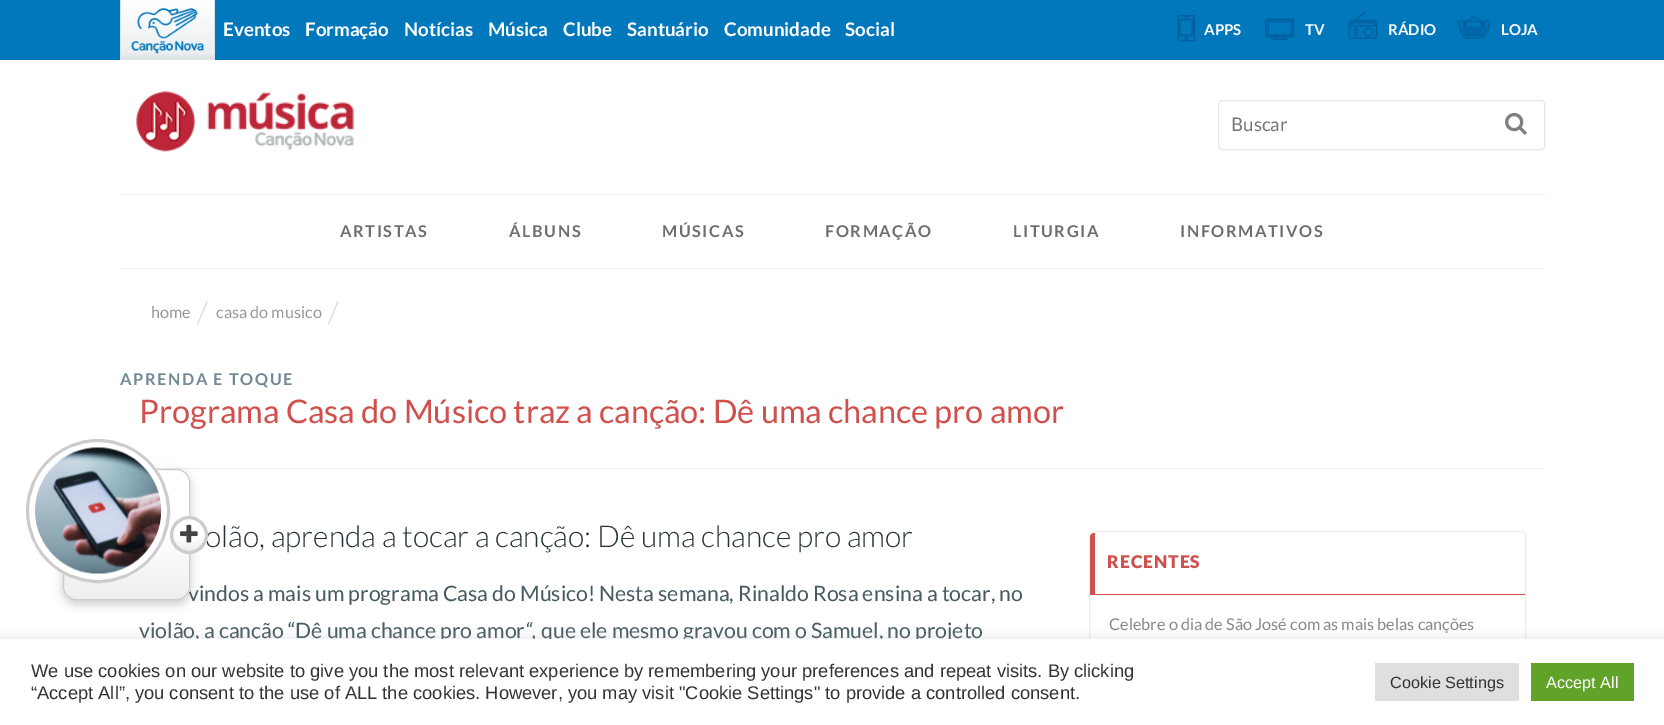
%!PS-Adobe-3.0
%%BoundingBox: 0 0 1664 725
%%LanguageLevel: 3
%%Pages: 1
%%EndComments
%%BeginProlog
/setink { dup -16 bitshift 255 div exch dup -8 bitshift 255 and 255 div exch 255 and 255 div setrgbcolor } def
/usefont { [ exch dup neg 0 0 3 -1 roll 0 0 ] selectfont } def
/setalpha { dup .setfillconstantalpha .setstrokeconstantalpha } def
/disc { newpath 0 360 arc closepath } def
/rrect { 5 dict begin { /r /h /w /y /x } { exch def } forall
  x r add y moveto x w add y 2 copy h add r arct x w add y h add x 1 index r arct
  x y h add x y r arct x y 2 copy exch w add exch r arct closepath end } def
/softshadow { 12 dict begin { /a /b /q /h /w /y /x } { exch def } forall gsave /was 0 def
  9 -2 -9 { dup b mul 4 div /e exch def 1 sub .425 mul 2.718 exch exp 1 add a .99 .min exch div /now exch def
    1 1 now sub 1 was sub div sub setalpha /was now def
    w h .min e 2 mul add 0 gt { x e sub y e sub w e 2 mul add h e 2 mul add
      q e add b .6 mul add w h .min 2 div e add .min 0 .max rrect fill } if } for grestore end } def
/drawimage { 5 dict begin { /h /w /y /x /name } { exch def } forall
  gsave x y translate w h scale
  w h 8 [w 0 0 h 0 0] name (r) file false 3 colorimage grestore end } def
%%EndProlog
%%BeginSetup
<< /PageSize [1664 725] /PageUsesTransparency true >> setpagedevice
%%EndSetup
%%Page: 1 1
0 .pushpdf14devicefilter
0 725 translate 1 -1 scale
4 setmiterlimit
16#FFFFFF setink
0 0 1664 725 rectfill
16#0177BC setink
0 0 1664 59 rectfill
16#0173B6 setink
0 59 1664 1 rectfill
gsave 121 0 moveto 214 0 lineto 214 59 lineto 121 59 lineto closepath clip newpath
<< /ShadingType 2 /ColorSpace /DeviceRGB /Coords [168 0 168 59] /Extend [true true] /Function << /FunctionType 3 /Domain [0 1] /Functions [<< /FunctionType 2 /Domain [0 1] /C0 [1 1 1] /C1 [0.922 0.933 0.941] /N 1 >> << /FunctionType 2 /Domain [0 1] /C0 [0.922 0.933 0.941] /C1 [0.863 0.886 0.898] /N 1 >>] /Bounds [0.9] /Encode [0 1 0 1] >> >> shfill grestore
[
    [214 0 1 60 16#DCE2E5]
    [120 59 95 1 16#DCE2E5]
    [120 0 1 60 16#DCE2E5]
] { aload pop setink rectfill } forall
(img1.raw) 131 8 73 46 drawimage
/Lato-Bold 18.75 usefont
16#FFFFFF setink
[
    [(Eventos) 223 36]
    [(Formação) 305 36]
    [(Notícias) 404 36]
    [(Música) 488 36]
    [(Clube) 563 36]
    [(Santuário) 627 36]
    [(Comunidade) 724 36]
    [(Social) 845 36]
] { aload pop moveto show } forall
(img2.raw) 1177 15 19 27 drawimage
/Lato-Bold 15 usefont
1204 35 moveto (APPS) show
(img3.raw) 1265 18 30 23 drawimage
1305 35 moveto (TV) show
(img4.raw) 1348 11 30 28 drawimage
1388 35 moveto (RÁDIO) show
(img5.raw) 1457 16 34 23 drawimage
1501 35 moveto (LOJA) show
(img6.raw) 136 91 218 61 drawimage
16#E6E6E6 setink
1218.5 100.5 326 49 3.5 rrect stroke
/Lato-Regular 18.75 usefont
16#757575 setink
1231 131 moveto (Buscar) show
(img7.raw) 1505 112 22 23 drawimage
16#EEEEEE setink
120 194 1425 1 rectfill
120 268 1425 1 rectfill
/Lato-Bold 16.25 usefont
16#6F6F6F setink
340 237 moveto 1.6 0 (ARTISTAS) ashow
509 237 moveto 1.6 0 (ÁLBUNS) ashow
662 237 moveto 1.6 0 (MÚSICAS) ashow
825 237 moveto 1.6 0 (FORMAÇÃO) ashow
1013 237 moveto 1.6 0 (LITURGIA) ashow
1180 237 moveto 1.6 0 (INFORMATIVOS) ashow
16#EEEEEE setink
155 468 1390 1 rectfill
16#000000 setink
63 473 127 131 13 5 0.2 softshadow
/Lato-Regular 21.25 usefont
16#455A63 setink
188 601 moveto (vindos a mais um programa Casa do Músico! Nesta semana, Rinaldo Rosa ensina a tocar, no) show
gsave
63 469 127 131 13 rrect clip newpath
gsave 63 470 moveto 190 470 lineto 190 599 lineto 63 599 lineto closepath clip newpath
<< /ShadingType 2 /ColorSpace /DeviceRGB /Coords [126 470 126 599] /Extend [true true] /Function << /FunctionType 3 /Domain [0 1] /Functions [<< /FunctionType 2 /Domain [0 1] /C0 [1 1 1] /C1 [1 1 1] /N 1 >> << /FunctionType 2 /Domain [0 1] /C0 [1 1 1] /C1 [0.933 0.933 0.933] /N 1 >>] /Bounds [0.5] /Encode [0 1 0 1] >> >> shfill grestore
grestore
16#CCCCCC setink
63.5 469.5 126 130 12.5 rrect stroke
16#FFFFFF setink
98 511 70.5 disc gsave fill grestore
16#CCCCCC setink
3 setlinewidth
stroke
(img8.raw) 35 447 127 128 drawimage
/Lato-Light 30 usefont
16#253138 setink
205 547 moveto (olão, aprenda a tocar a canção: Dê uma chance pro amor) show
gsave
170 516 38 38 19 rrect clip newpath
gsave 170 519 moveto 208 519 lineto 208 551 lineto 170 551 lineto closepath clip newpath
<< /ShadingType 2 /ColorSpace /DeviceRGB /Coords [189 519 189 551] /Extend [true true] /Function << /FunctionType 3 /Domain [0 1] /Functions [<< /FunctionType 2 /Domain [0 1] /C0 [1 1 1] /C1 [1 1 1] /N 1 >> << /FunctionType 2 /Domain [0 1] /C0 [1 1 1] /C1 [0.933 0.933 0.933] /N 1 >>] /Bounds [0.5] /Encode [0 1 0 1] >> >> shfill grestore
grestore
16#CCCCCC setink
189 535 17.5 disc stroke
(img9.raw) 180 524 18 19 drawimage
/Lato-Regular 16.25 usefont
16#989898 setink
151 318 moveto (home) show
/Lato-Light 30 usefont
16#D5D5D5 setink
197 323 moveto (/) show
/Lato-Regular 16.25 usefont
16#989898 setink
216 318 moveto (casa do musico) show
/Lato-Light 30 usefont
16#D5D5D5 setink
328 323 moveto (/) show
/Lato-Bold 16.25 usefont
16#718A96 setink
120 385 moveto 1.6 0 (APRENDA E TOQUE) ashow
/Lato-Regular 32.5 usefont
16#CF504C setink
139 423 moveto (Programa Casa do Músico traz a canção: Dê uma chance pro amor) show
/Lato-Regular 21.25 usefont
16#455A63 setink
139 638 moveto (violão, a canção “Dê uma chance pro amor) show
/Lato-Italic 21.25 usefont
525 638 moveto (“,) show
/Lato-Regular 21.25 usefont
541 638 moveto (que ele mesmo gravou com o Samuel, no projeto) show
16#EEEEEE setink
1 setlinewidth
1089.5 531.5 436 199 4.5 rrect stroke
16#CF504C setink
1090 594 435 1 rectfill
1094 533 moveto 1095 533 lineto 1095 595 lineto 1090 595 lineto 1090 537 lineto 1090 535 1092 533 1094 533 curveto closepath fill
/Lato-Black 17.5 usefont
1107 568 moveto 1 0 (RECENTES) ashow
/Lato-Regular 16.25 usefont
16#888888 setink
1109 630 moveto (Celebre o dia de São José com as mais belas canções) show
16#ACABAB setink
0 638 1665 86 0 6 0.3 softshadow
16#FFFFFF setink
0 639 1664 86 rectfill
/LiberationSans-Regular 18.33 usefont
16#333333 setink
31 677 moveto (We use cookies on our website to give you the most relevant experience by remembering your preferences and repeat visits. By clicking) show
31 699 moveto (“Accept All”, you consent to the use of ALL the cookies. However, you may visit "Cookie Settings" to provide a controlled consent.) show
16#DEDFE0 setink
1375 663 144 38 rectfill
/LiberationSans-Regular 16.25 usefont
16#333333 setink
1390 688 moveto (Cookie Settings) show
16#61A229 setink
1531 663 103 38 rectfill
16#FFFFFF setink
1546 688 moveto (Accept All) show
.poppdf14devicefilter showpage
%%EOF
